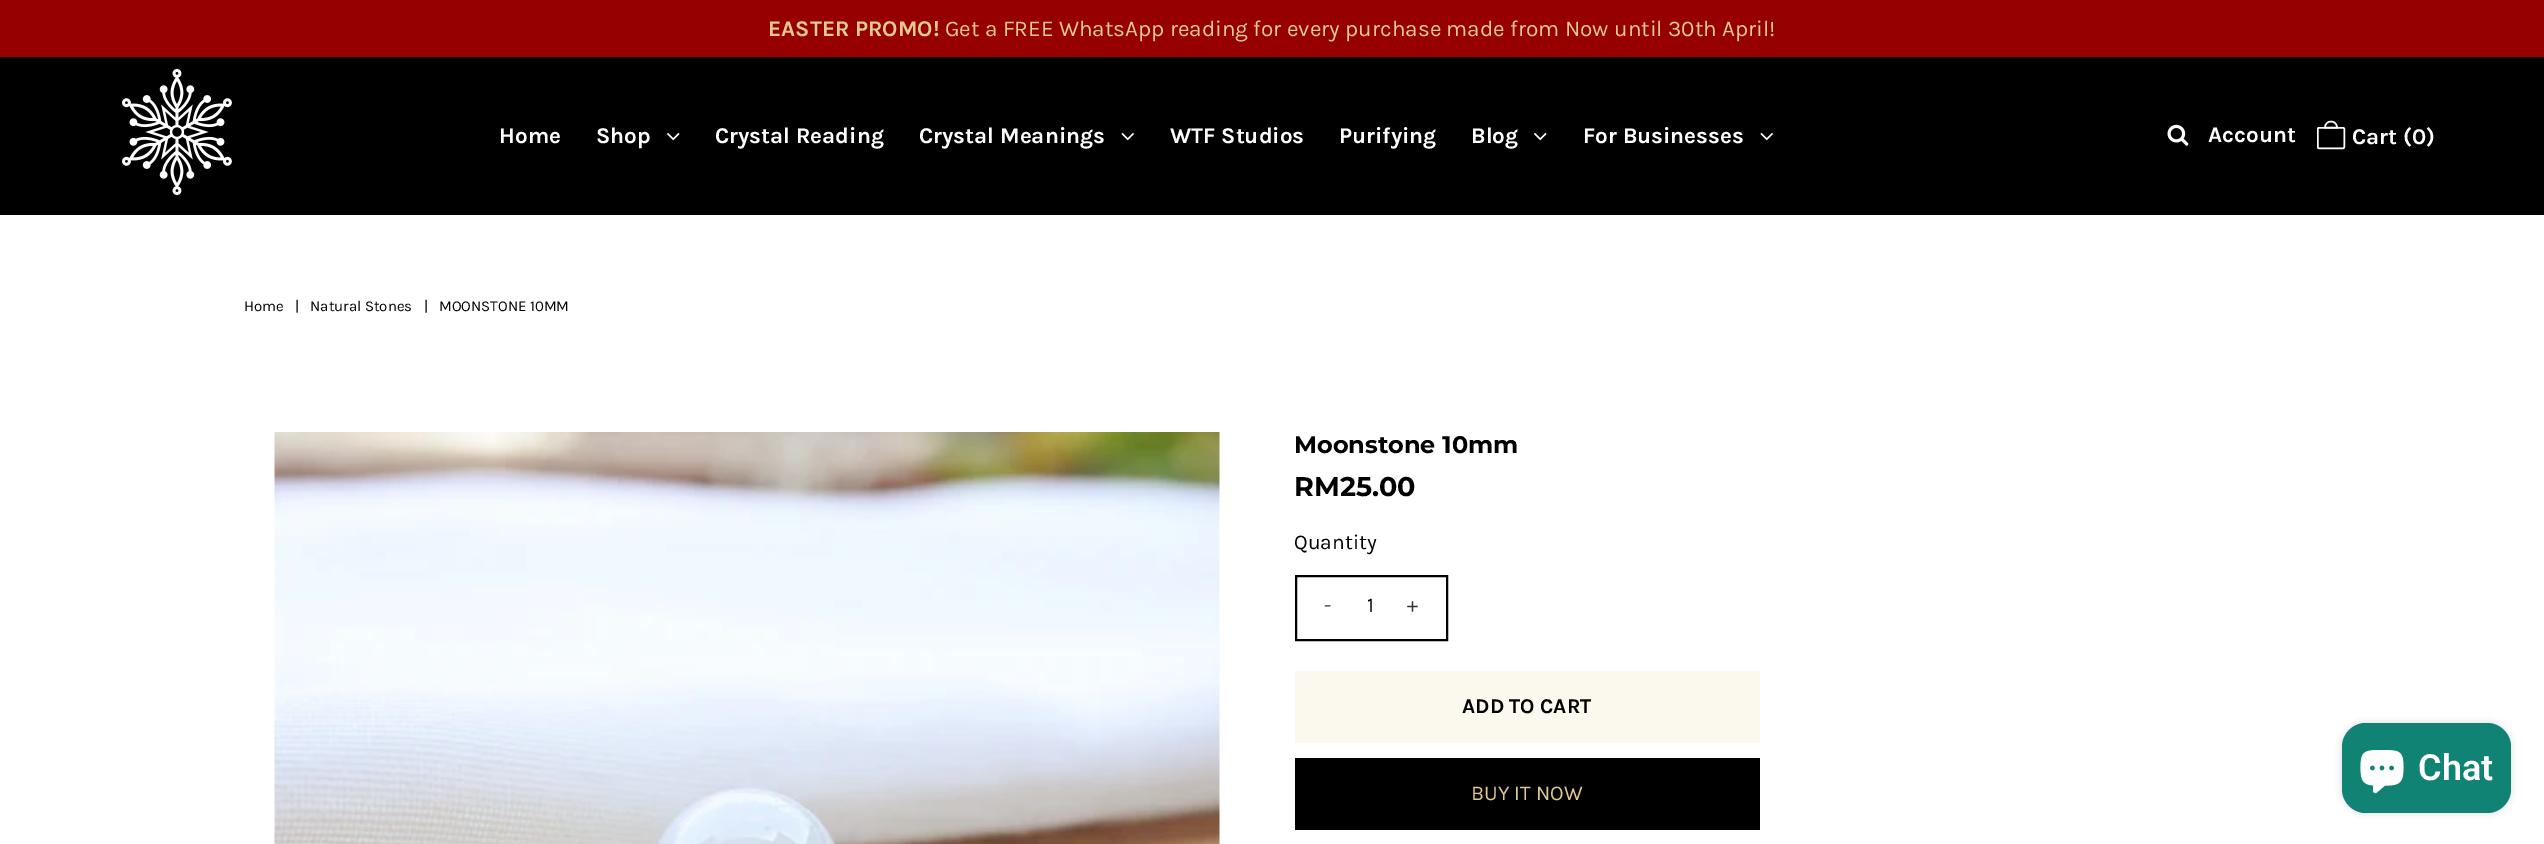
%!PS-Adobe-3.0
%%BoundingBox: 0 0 2544 844
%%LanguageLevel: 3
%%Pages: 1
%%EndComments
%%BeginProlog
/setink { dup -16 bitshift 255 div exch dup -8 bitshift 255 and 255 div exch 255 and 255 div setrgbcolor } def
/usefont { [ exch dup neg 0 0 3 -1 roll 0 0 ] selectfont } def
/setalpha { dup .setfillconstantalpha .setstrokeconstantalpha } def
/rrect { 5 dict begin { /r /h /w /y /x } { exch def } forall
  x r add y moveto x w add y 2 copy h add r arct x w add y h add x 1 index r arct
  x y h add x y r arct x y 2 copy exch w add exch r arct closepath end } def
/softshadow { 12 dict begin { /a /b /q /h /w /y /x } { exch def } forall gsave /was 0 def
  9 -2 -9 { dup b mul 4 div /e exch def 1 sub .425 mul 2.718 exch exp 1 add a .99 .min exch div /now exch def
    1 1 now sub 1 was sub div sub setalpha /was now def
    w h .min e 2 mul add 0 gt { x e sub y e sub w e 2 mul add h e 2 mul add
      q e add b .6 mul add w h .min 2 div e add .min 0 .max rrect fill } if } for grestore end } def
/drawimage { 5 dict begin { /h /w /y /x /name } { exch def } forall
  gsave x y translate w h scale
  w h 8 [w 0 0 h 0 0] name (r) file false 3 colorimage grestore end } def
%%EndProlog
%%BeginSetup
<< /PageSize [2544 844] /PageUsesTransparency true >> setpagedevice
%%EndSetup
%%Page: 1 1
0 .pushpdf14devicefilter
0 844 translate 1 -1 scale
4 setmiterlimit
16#FFFFFF setink
0 0 2544 844 rectfill
16#000000 setink
0 57 2544 158 rectfill
16#960000 setink
0 0 2544 57 rectfill
/Karla-Bold 22.5 usefont
16#E1C991 setink
768 36 moveto (EASTER PROMO!) show
/Karla-Regular 22.5 usefont
945 36 moveto (Get a FREE WhatsApp reading for every purchase made from Now until 30th April!) show
(img1.raw) 122 68 110 128 drawimage
/Karla-Bold 22.5 usefont
16#FFFFFF setink
499 143 moveto (Home) show
596 143 moveto (Shop) show
(img2.raw) 667 133 13 8 drawimage
715 143 moveto (Crystal Reading) show
919 143 moveto (Crystal Meanings) show
(img3.raw) 1121 133 13 8 drawimage
[
    [(WTF Studios) 1170 143]
    [(Purifying) 1339 143]
    [(Blog) 1471 143]
] { aload pop moveto show } forall
(img2.raw) 1534 133 13 8 drawimage
1583 143 moveto (For Businesses) show
(img3.raw) 1760 133 13 8 drawimage
(img4.raw) 2167 124 22 22 drawimage
2208 142 moveto (Account) show
1.5 setlinewidth
2331 121.5 moveto 2334.5 121.5 2337 124 2337 127.5 curveto 2325 127.5 lineto 2325 124 2327.5 121.5 2331 121.5 curveto closepath stroke
2317.75 127.75 26.5 20.5 1.25 rrect stroke
2352 144 moveto (Cart \(0\)) show
/Karla-Regular 15 usefont
16#000000 setink
[
    [(Home) 244 311]
    [(|) 295 311]
    [(Natural Stones) 310 311]
    [(|) 424 311]
    [(MOONSTONE 10MM) 439 311]
] { aload pop moveto show } forall
(img5.raw) 274 432 946 412 drawimage
/Montserrat-Bold 24 usefont
1294 453 moveto (Moonstone 10mm) show
/Montserrat-Bold 27 usefont
1294 496 moveto (RM25.00) show
/Karla-Regular 21 usefont
1294 549 moveto (Quantity) show
2 setlinewidth
1296 576 151 64 rectstroke
16#333333 setink
1324 612 moveto (-) show
16#000000 setink
1367 612 moveto (1) show
16#333333 setink
1407 612 moveto (+) show
16#FBF9EE setink
1295 671 465 72 rectfill
/Karla-Bold 21 usefont
16#000000 setink
1462 713 moveto (ADD TO CART) show
1295 758 465 72 rectfill
/Karla-Regular 21 usefont
16#E1C991 setink
1471 800 moveto (BUY IT NOW) show
16#000000 setink
2342 723 169 90 24 4 0.15 softshadow
16#108374 setink
2342 723 169 90 24 rrect fill
(img6.raw) 2360 750 44 44 drawimage
/Roboto-SemiBold 36 usefont
16#FFFFFF setink
2418 780 moveto (Chat) show
.poppdf14devicefilter showpage
%%EOF
